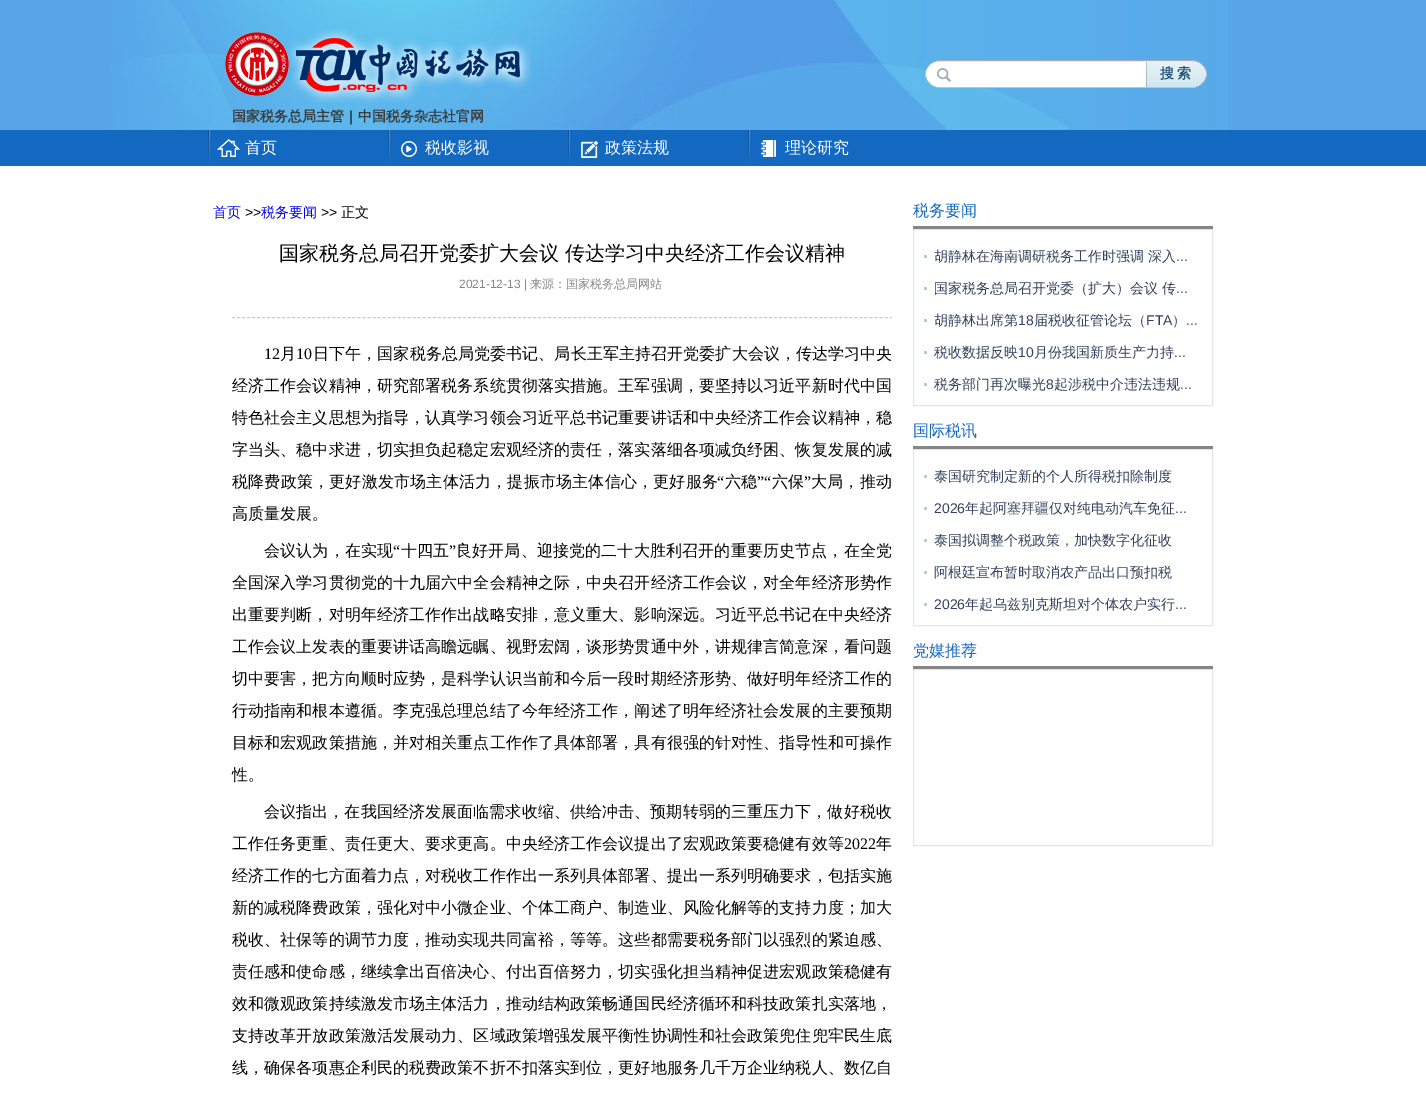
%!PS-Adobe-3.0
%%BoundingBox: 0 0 1426 1098
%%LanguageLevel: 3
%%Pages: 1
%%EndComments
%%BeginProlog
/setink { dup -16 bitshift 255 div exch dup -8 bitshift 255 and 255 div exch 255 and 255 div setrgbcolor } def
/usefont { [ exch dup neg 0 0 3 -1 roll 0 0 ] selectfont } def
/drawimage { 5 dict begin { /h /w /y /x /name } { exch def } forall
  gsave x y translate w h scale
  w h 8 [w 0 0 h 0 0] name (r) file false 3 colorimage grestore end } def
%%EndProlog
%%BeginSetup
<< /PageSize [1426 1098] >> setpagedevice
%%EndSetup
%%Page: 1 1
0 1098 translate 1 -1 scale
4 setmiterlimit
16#FFFFFF setink
0 0 1426 1098 rectfill
16#57A5E8 setink
0 0 1426 130 rectfill
(img1.raw) 110 0 1118 130 drawimage
(img2.raw) 925 60 282 28 drawimage
/WenQuanYiZenHei-Bold 14 usefont
16#25547B setink
1160 78 moveto -1 0 32 (搜 索) widthshow
(img3.raw) 225 29 306 74 drawimage
16#3C3D3E setink
232 121 moveto (国家税务总局主管) show
/WenQuanYiZenHei-Medium 14 usefont
16#000000 setink
344 121 moveto (｜) show
/WenQuanYiZenHei-Bold 14 usefont
16#3C3D3E setink
358 121 moveto (中国税务杂志社官网) show
16#1369C0 setink
0 130 1426 36 rectfill
(img4.raw) 208 130 32 36 drawimage
/WenQuanYiZenHei-Medium 16 usefont
16#FFFFFF setink
245 153 moveto (首页) show
(img5.raw) 388 130 32 36 drawimage
425 153 moveto (税收影视) show
(img6.raw) 568 130 31 36 drawimage
605 153 moveto (政策法规) show
(img7.raw) 748 130 35 36 drawimage
785 153 moveto (理论研究) show
/WenQuanYiZenHei-Medium 14 usefont
16#0000EE setink
213 217 moveto (首页) show
/LiberationSans-Regular 14 usefont
16#000000 setink
245 217 moveto (>>) show
/WenQuanYiZenHei-Medium 14 usefont
16#0000EE setink
261 217 moveto (税务要闻) show
/LiberationSans-Regular 14 usefont
16#000000 setink
321 217 moveto (>>) show
/WenQuanYiZenHei-Medium 14 usefont
341 217 moveto (正文) show
/WenQuanYiZenHei-Medium 20 usefont
279 260 moveto (国家税务总局召开党委扩大会议 传达学习中央经济工作会议精神) show
16#CCCCCC setink
[3 2.02] 0 setdash
232 317.5 moveto 892 317.5 lineto stroke
/LiberationSans-Regular 12 usefont
16#868686 setink
459 288 moveto (2021-12-13 |) show
/WenQuanYiZenHei-Medium 12 usefont
530 288 moveto (来源：国家税务总局网站) show
/LiberationSerif-Regular 16 usefont
16#000000 setink
264 359 moveto 0.1 0 (12) ashow
/WenQuanYiZenHei-Medium 16 usefont
280 359 moveto 0.1 0 (月) ashow
/LiberationSerif-Regular 16 usefont
296 359 moveto 0.1 0 (10) ashow
/WenQuanYiZenHei-Medium 16 usefont
313 359 moveto 0.1 0 (日下午，国家税务总局党委书记、局长王军主持召开党委扩大会议，传达学习中央) ashow
232 391 moveto 0.1 0 (经济工作会议精神，研究部署税务系统贯彻落实措施。王军强调，要坚持以习近平新时代中国) ashow
232 423 moveto 0.1 0 (特色社会主义思想为指导，认真学习领会习近平总书记重要讲话和中央经济工作会议精神，稳) ashow
232 455 moveto 0.1 0 (字当头、稳中求进，切实担负起稳定宏观经济的责任，落实落细各项减负纾困、恢复发展的减) ashow
232 487 moveto 0.2 0 (税降费政策，更好激发市场主体活力，提振市场主体信心，更好服务) ashow
/LiberationSerif-Regular 16 usefont
717 487 moveto 0.2 0 (“) ashow
/WenQuanYiZenHei-Medium 16 usefont
725 487 moveto 0.2 0 (六稳) ashow
/LiberationSerif-Regular 16 usefont
757 487 moveto 0.2 0 (”“) ashow
/WenQuanYiZenHei-Medium 16 usefont
772 487 moveto 0.2 0 (六保) ashow
/LiberationSerif-Regular 16 usefont
804 487 moveto 0.2 0 (”) ashow
/WenQuanYiZenHei-Medium 16 usefont
811 487 moveto 0.2 0 (大局，推动) ashow
232 519 moveto (高质量发展。) show
264 556 moveto 0.15 0 (会议认为，在实现) ashow
/LiberationSerif-Regular 16 usefont
393 556 moveto 0.15 0 (“) ashow
/WenQuanYiZenHei-Medium 16 usefont
401 556 moveto 0.15 0 (十四五) ashow
/LiberationSerif-Regular 16 usefont
449 556 moveto 0.15 0 (”) ashow
/WenQuanYiZenHei-Medium 16 usefont
456 556 moveto 0.15 0 (良好开局、迎接党的二十大胜利召开的重要历史节点，在全党) ashow
232 588 moveto 0.1 0 (全国深入学习贯彻党的十九届六中全会精神之际，中央召开经济工作会议，对全年经济形势作) ashow
232 620 moveto 0.1 0 (出重要判断，对明年经济工作作出战略安排，意义重大、影响深远。习近平总书记在中央经济) ashow
232 652 moveto 0.1 0 (工作会议上发表的重要讲话高瞻远瞩、视野宏阔，谈形势贯通中外，讲规律言简意深，看问题) ashow
232 684 moveto 0.1 0 (切中要害，把方向顺时应势，是科学认识当前和今后一段时期经济形势、做好明年经济工作的) ashow
232 716 moveto 0.1 0 (行动指南和根本遵循。李克强总理总结了今年经济工作，阐述了明年经济社会发展的主要预期) ashow
232 748 moveto 0.1 0 (目标和宏观政策措施，并对相关重点工作作了具体部署，具有很强的针对性、指导性和可操作) ashow
232 780 moveto (性。) show
264 817 moveto 0.1 0 (会议指出，在我国经济发展面临需求收缩、供给冲击、预期转弱的三重压力下，做好税收) ashow
232 849 moveto 0.1 0 (工作任务更重、责任更大、要求更高。中央经济工作会议提出了宏观政策要稳健有效等) ashow
/LiberationSerif-Regular 16 usefont
844 849 moveto 0.1 0 (2022) ashow
/WenQuanYiZenHei-Medium 16 usefont
876 849 moveto 0.1 0 (年) ashow
232 881 moveto 0.1 0 (经济工作的七方面着力点，对税收工作作出一系列具体部署、提出一系列明确要求，包括实施) ashow
232 913 moveto 0.1 0 (新的减税降费政策，强化对中小微企业、个体工商户、制造业、风险化解等的支持力度；加大) ashow
232 945 moveto 0.1 0 (税收、社保等的调节力度，推动实现共同富裕，等等。这些都需要税务部门以强烈的紧迫感、) ashow
232 977 moveto 0.1 0 (责任感和使命感，继续拿出百倍决心、付出百倍努力，切实强化担当精神促进宏观政策稳健有) ashow
232 1009 moveto 0.1 0 (效和微观政策持续激发市场主体活力，推动结构政策畅通国民经济循环和科技政策扎实落地，) ashow
232 1041 moveto 0.1 0 (支持改革开放政策激活发展动力、区域政策增强发展平衡性协调性和社会政策兜住兜牢民生底) ashow
232 1073 moveto 0.1 0 (线，确保各项惠企利民的税费政策不折不扣落实到位，更好地服务几千万企业纳税人、数亿自) ashow
16#868686 setink
913 226 300 3 rectfill
16#1468C2 setink
913 216 moveto (税务要闻) show
16#E4E5E7 setink
[] 0 setdash
913.5 229.5 299 176 rectstroke
16#BBCCD4 setink
924 255 3 3 rectfill
/WenQuanYiZenHei-Medium 14 usefont
16#33415C setink
934 261 moveto (胡静林在海南调研税务工作时强调 深入) show
/LiberationSans-Regular 14 usefont
1176 261 moveto (...) show
16#BBCCD4 setink
924 287 3 3 rectfill
/WenQuanYiZenHei-Medium 14 usefont
16#33415C setink
934 293 moveto (国家税务总局召开党委（扩大）会议 传) show
/LiberationSans-Regular 14 usefont
1176 293 moveto (...) show
16#BBCCD4 setink
924 319 3 3 rectfill
/WenQuanYiZenHei-Medium 14 usefont
16#33415C setink
934 325 moveto (胡静林出席第) show
/LiberationSans-Regular 14 usefont
1018 325 moveto (18) show
/WenQuanYiZenHei-Medium 14 usefont
1034 325 moveto (届税收征管论坛（) show
/LiberationSans-Regular 14 usefont
1146 325 moveto (FTA) show
/WenQuanYiZenHei-Medium 14 usefont
1172 325 moveto (）) show
/LiberationSans-Regular 14 usefont
1186 325 moveto (...) show
16#BBCCD4 setink
924 351 3 3 rectfill
/WenQuanYiZenHei-Medium 14 usefont
16#33415C setink
934 357 moveto (税收数据反映) show
/LiberationSans-Regular 14 usefont
1018 357 moveto (10) show
/WenQuanYiZenHei-Medium 14 usefont
1034 357 moveto (月份我国新质生产力持) show
/LiberationSans-Regular 14 usefont
1174 357 moveto (...) show
16#BBCCD4 setink
924 383 3 3 rectfill
/WenQuanYiZenHei-Medium 14 usefont
16#33415C setink
934 389 moveto (税务部门再次曝光) show
/LiberationSans-Regular 14 usefont
1046 389 moveto (8) show
/WenQuanYiZenHei-Medium 14 usefont
1054 389 moveto (起涉税中介违法违规) show
/LiberationSans-Regular 14 usefont
1180 389 moveto (...) show
16#868686 setink
913 446 300 3 rectfill
/WenQuanYiZenHei-Medium 16 usefont
16#1468C2 setink
913 436 moveto (国际税讯) show
16#E4E5E7 setink
913.5 449.5 299 176 rectstroke
16#BBCCD4 setink
924 475 3 3 rectfill
/WenQuanYiZenHei-Medium 14 usefont
16#33415C setink
934 481 moveto (泰国研究制定新的个人所得税扣除制度) show
16#BBCCD4 setink
924 507 3 3 rectfill
/LiberationSans-Regular 14 usefont
16#33415C setink
934 513 moveto (2026) show
/WenQuanYiZenHei-Medium 14 usefont
965 513 moveto (年起阿塞拜疆仅对纯电动汽车免征) show
/LiberationSans-Regular 14 usefont
1175 513 moveto (...) show
16#BBCCD4 setink
924 539 3 3 rectfill
/WenQuanYiZenHei-Medium 14 usefont
16#33415C setink
934 545 moveto (泰国拟调整个税政策，加快数字化征收) show
16#BBCCD4 setink
924 571 3 3 rectfill
16#33415C setink
934 577 moveto (阿根廷宣布暂时取消农产品出口预扣税) show
16#BBCCD4 setink
924 603 3 3 rectfill
/LiberationSans-Regular 14 usefont
16#33415C setink
934 609 moveto (2026) show
/WenQuanYiZenHei-Medium 14 usefont
965 609 moveto (年起乌兹别克斯坦对个体农户实行) show
/LiberationSans-Regular 14 usefont
1175 609 moveto (...) show
16#868686 setink
913 666 300 3 rectfill
/WenQuanYiZenHei-Medium 16 usefont
16#1468C2 setink
913 656 moveto (党媒推荐) show
16#E4E5E7 setink
913.5 669.5 299 176 rectstroke
showpage
%%EOF
